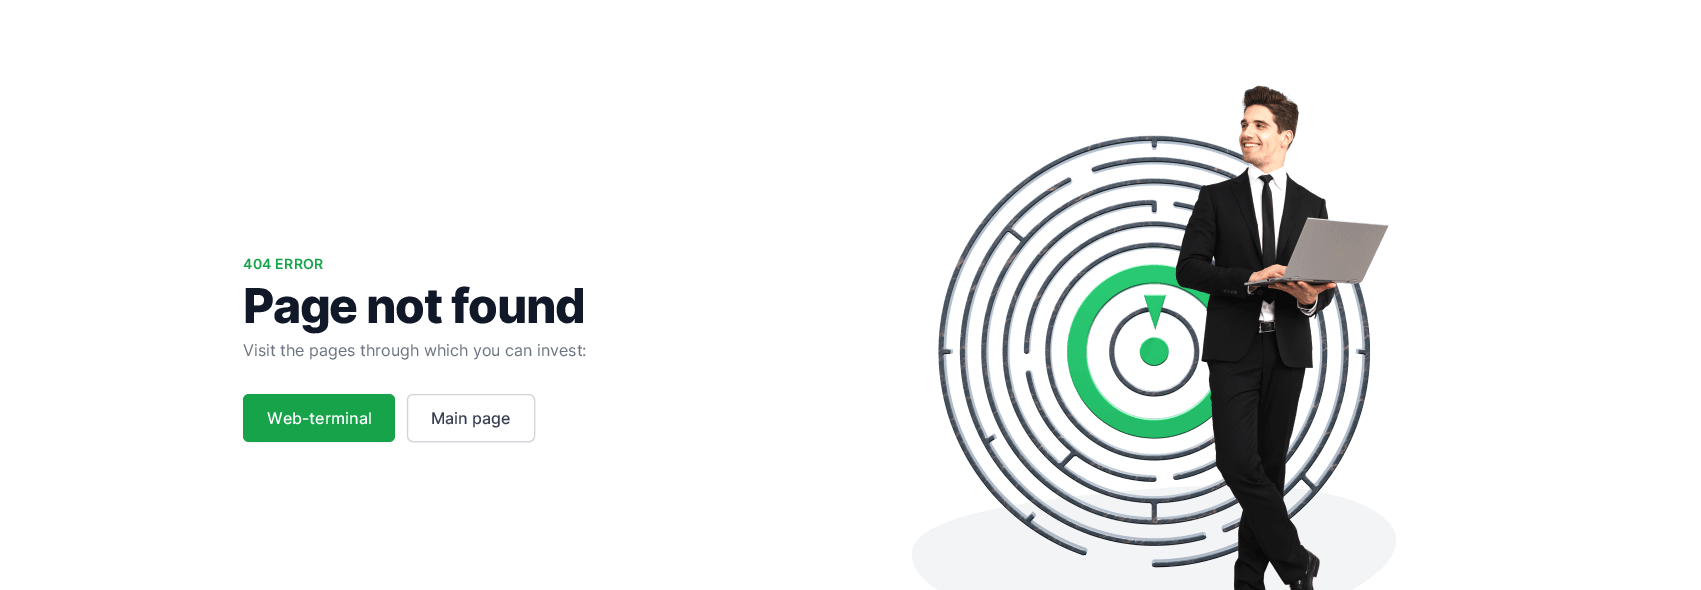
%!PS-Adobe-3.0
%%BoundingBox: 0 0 1701 590
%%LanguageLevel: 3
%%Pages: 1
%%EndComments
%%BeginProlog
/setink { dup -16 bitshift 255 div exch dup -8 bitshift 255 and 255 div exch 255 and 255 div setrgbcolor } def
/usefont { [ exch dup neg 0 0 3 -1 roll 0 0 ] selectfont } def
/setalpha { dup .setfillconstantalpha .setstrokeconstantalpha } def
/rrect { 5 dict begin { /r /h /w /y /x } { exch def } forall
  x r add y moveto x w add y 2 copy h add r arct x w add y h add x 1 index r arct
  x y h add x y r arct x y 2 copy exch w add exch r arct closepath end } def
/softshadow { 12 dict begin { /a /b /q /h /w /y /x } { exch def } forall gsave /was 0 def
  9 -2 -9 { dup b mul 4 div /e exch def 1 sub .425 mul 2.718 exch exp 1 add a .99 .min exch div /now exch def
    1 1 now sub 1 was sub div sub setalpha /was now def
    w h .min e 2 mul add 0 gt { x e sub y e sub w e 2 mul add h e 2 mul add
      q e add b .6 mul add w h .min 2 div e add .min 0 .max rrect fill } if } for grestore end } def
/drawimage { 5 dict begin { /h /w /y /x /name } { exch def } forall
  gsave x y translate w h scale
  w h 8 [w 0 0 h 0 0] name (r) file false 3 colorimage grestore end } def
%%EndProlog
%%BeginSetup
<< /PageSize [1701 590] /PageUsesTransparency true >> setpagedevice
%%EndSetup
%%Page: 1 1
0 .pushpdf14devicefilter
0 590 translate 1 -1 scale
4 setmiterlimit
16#FFFFFF setink
0 0 1701 590 rectfill
/Inter-SemiBold 14 usefont
16#16A34A setink
243 269 moveto 0.25 0 (404 ERROR) ashow
/Inter-ExtraBold 48 usefont
16#111827 setink
243 323 moveto -1.25 0 (Page not found) ashow
/Inter-Regular 16 usefont
16#6B7280 setink
243 356 moveto (Visit the pages through which you can invest:) show
16#000000 setink
243 395 152 48 6 1 0.05 softshadow
16#16A34A setink
243 394 152 48 6 rrect fill
/Inter-Medium 16 usefont
16#FFFFFF setink
267 424 moveto (Web-terminal) show
16#000000 setink
407 395 128 48 6 1 0.05 softshadow
16#FFFFFF setink
407.5 394.5 127 47 5.5 rrect gsave fill grestore
16#D1D5DB setink
stroke
16#374151 setink
431 424 moveto (Main page) show
(img1.raw) 912 85 484 505 drawimage
.poppdf14devicefilter showpage
%%EOF
